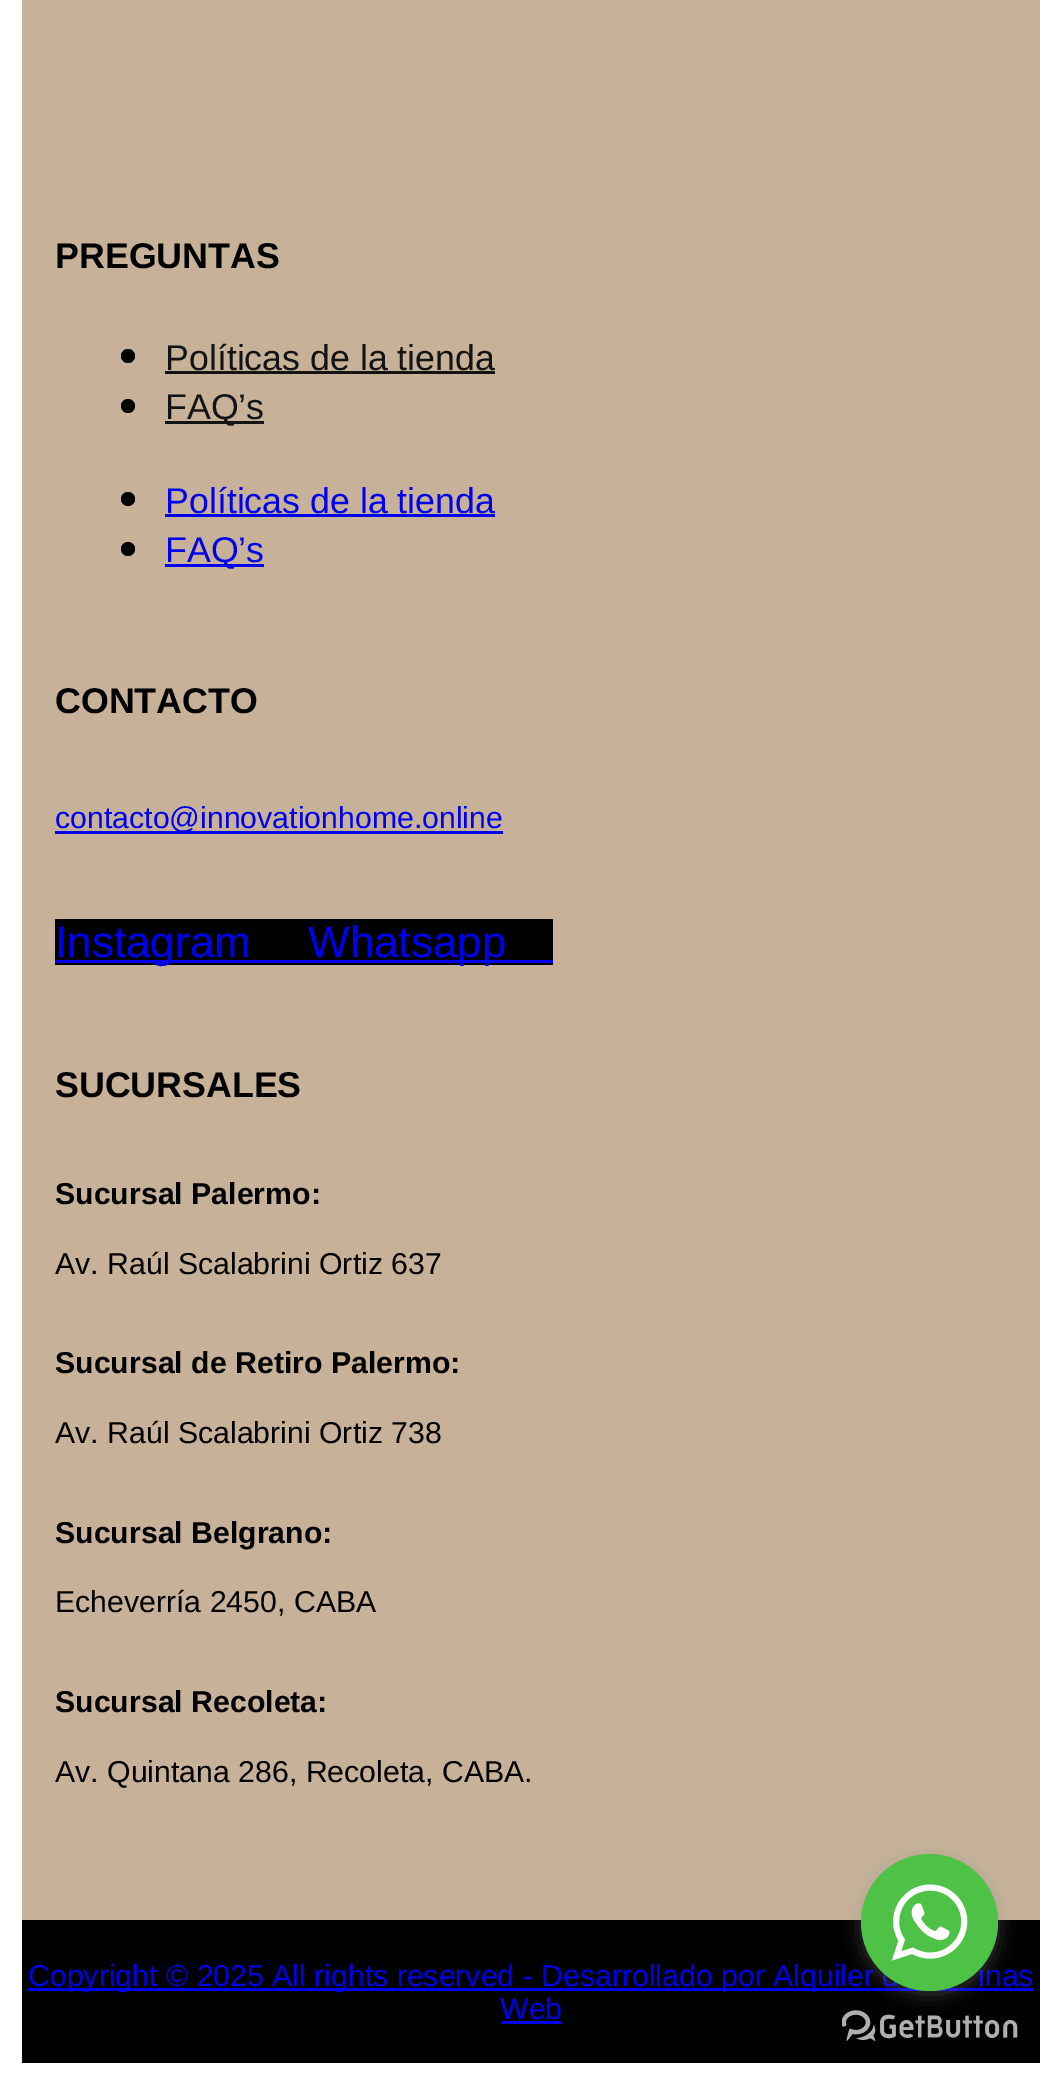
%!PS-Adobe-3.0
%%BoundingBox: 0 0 1061 2082
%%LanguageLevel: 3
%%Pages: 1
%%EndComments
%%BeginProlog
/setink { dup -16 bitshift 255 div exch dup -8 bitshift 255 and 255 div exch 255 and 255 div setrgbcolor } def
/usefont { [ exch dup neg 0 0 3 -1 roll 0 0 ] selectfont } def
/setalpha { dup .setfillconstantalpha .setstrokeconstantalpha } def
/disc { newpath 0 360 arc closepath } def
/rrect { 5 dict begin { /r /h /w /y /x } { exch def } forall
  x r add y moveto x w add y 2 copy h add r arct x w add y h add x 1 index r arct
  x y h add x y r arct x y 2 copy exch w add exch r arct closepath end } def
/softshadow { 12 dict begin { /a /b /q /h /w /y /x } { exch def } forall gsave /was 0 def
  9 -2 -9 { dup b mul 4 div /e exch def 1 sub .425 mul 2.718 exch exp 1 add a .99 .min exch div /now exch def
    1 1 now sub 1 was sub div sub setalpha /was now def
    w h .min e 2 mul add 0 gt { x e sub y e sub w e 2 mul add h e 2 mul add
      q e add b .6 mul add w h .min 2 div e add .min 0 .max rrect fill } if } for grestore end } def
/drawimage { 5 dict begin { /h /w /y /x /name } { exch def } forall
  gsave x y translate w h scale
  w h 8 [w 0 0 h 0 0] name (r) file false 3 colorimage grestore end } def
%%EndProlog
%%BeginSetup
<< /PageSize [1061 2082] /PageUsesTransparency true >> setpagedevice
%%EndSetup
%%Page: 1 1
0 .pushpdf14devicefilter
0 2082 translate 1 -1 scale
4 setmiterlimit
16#FFFFFF setink
0 0 1061 2082 rectfill
16#C7B299 setink
22 0 1018 1920 rectfill
/LiberationSans-Bold 35.75 usefont
16#000000 setink
55 268 moveto (PREGUNTAS) show
128 356 7 disc fill
/LiberationSans-Regular 35.75 usefont
16#131313 setink
165 370 moveto (Políticas de la tienda) show
165 371 330 3 rectfill
16#000000 setink
128 406 7 disc fill
16#131313 setink
165 421 99 3 rectfill
165 419 moveto (FAQ’s) show
16#000000 setink
128 499 7 disc fill
16#0000EE setink
165 513 moveto (Políticas de la tienda) show
165 514 330 3 rectfill
16#000000 setink
128 549 7 disc fill
16#0000EE setink
165 564 99 3 rectfill
165 562 moveto (FAQ’s) show
/LiberationSans-Bold 35.75 usefont
16#000000 setink
55 713 moveto (CONTACTO) show
16#0000EE setink
55 831 448 3 rectfill
/LiberationSans-Regular 30.25 usefont
55 828 moveto (contacto@innovationhome.online) show
16#000000 setink
55 919 498 46 rectfill
16#0000EE setink
55 960 498 3 rectfill
/LiberationSans-Regular 44 usefont
55 957 moveto (Instagram) show
308 957 moveto (Whatsapp) show
/LiberationSans-Bold 35.75 usefont
16#000000 setink
55 1097 moveto (SUCURSALES) show
/LiberationSans-Bold 30.25 usefont
55 1204 moveto (Sucursal Palermo:) show
/LiberationSans-Regular 30.25 usefont
55 1274 moveto (Av. Raúl Scalabrini Ortiz 637) show
/LiberationSans-Bold 30.25 usefont
55 1373 moveto (Sucursal de Retiro Palermo:) show
/LiberationSans-Regular 30.25 usefont
55 1443 moveto (Av. Raúl Scalabrini Ortiz 738) show
/LiberationSans-Bold 30.25 usefont
55 1543 moveto (Sucursal Belgrano:) show
/LiberationSans-Regular 30.25 usefont
55 1612 moveto (Echeverría 2450, CABA) show
/LiberationSans-Bold 30.25 usefont
55 1712 moveto (Sucursal Recoleta:) show
/LiberationSans-Regular 30.25 usefont
55 1782 moveto (Av. Quintana 286, Recoleta, CABA.) show
22 1920 1018 143 rectfill
16#0000EE setink
28 1988 1006 3 rectfill
[
    [(Copyright © 2025 All rights reserved - Desarrollado por Alquiler d) 28 1986]
    [(inas) 978 1986]
    [(Web) 500 2019]
] { aload pop moveto show } forall
501 2021 60 3 rectfill
(img2.raw) 842 2010 176 31 drawimage
16#888888 setink
861 1856 137 138 68.5 9.5 0.4 softshadow
16#4DC247 setink
929.5 1922.5 68.5 disc fill
(img1.raw) 891 1884 77 77 drawimage
.poppdf14devicefilter showpage
%%EOF
